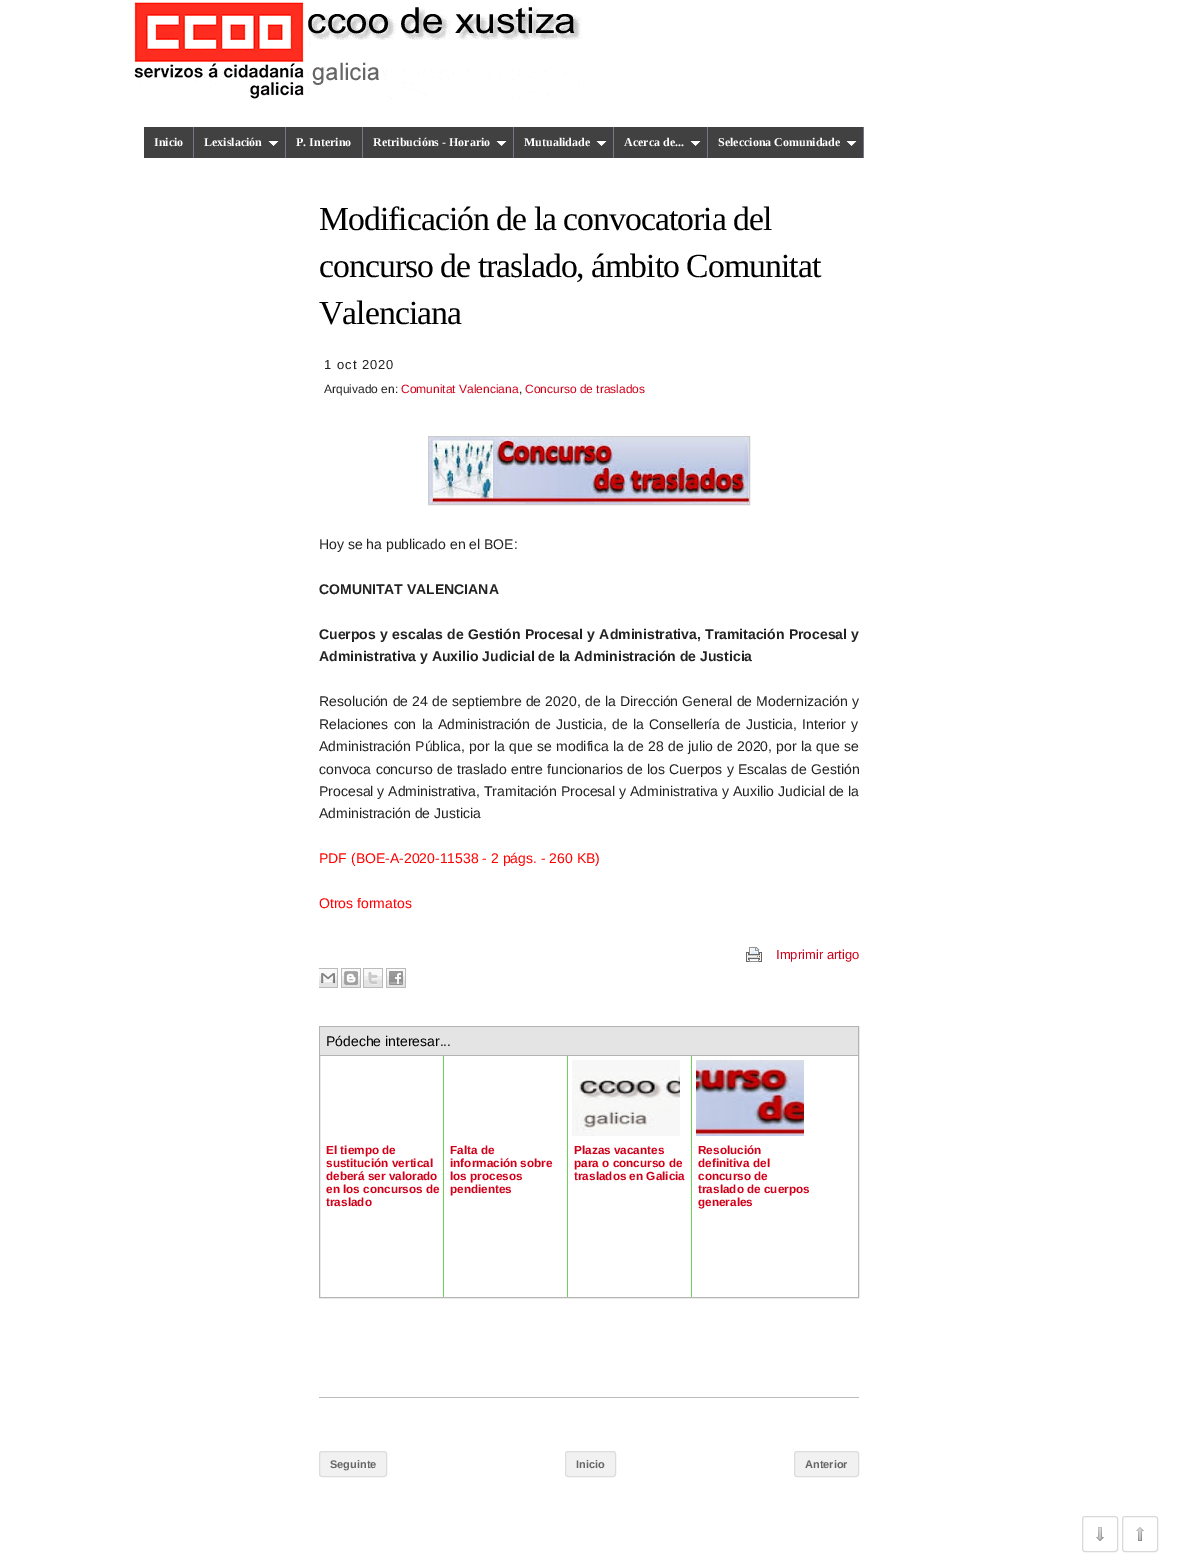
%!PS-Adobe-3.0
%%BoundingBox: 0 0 1188 1562
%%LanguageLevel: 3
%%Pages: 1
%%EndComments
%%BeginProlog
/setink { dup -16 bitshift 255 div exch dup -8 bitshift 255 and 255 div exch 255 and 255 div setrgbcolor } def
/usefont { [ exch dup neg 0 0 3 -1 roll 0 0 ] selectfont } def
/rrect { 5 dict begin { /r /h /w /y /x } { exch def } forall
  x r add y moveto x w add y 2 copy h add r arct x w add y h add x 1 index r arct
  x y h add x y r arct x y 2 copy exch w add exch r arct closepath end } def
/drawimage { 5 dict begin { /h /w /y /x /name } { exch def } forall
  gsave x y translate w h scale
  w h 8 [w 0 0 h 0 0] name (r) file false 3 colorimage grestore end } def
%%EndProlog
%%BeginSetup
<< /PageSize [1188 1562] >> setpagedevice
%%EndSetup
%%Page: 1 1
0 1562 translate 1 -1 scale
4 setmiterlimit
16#FFFFFF setink
0 0 1188 1562 rectfill
(img1.raw) 134 2 448 97 drawimage
16#414141 setink
144 127 49 31 rectfill
16#777788 setink
193 127 1 31 rectfill
/LiberationSerif-Bold 12 usefont
16#FFFFFF setink
154 146 moveto (Inicio) show
16#414141 setink
194 127 91 31 rectfill
16#777788 setink
285 127 1 31 rectfill
16#FFFFFF setink
204 146 moveto (Lexislación) show
(img2.raw) 268 140 11 7 drawimage
16#414141 setink
286 127 76 31 rectfill
16#777788 setink
362 127 1 31 rectfill
16#FFFFFF setink
296 146 moveto (P. Interino) show
16#414141 setink
363 127 150 31 rectfill
16#777788 setink
513 127 1 31 rectfill
16#FFFFFF setink
373 146 moveto (Retribucións - Horario) show
(img2.raw) 496 140 11 7 drawimage
16#414141 setink
514 127 99 31 rectfill
16#777788 setink
613 127 1 31 rectfill
16#FFFFFF setink
524 146 moveto (Mutualidade) show
(img2.raw) 596 140 11 7 drawimage
16#414141 setink
614 127 93 31 rectfill
16#777788 setink
707 127 1 31 rectfill
16#FFFFFF setink
624 146 moveto (Acerca de...) show
(img2.raw) 690 140 11 7 drawimage
16#414141 setink
708 127 155 31 rectfill
16#777788 setink
863 127 1 31 rectfill
16#FFFFFF setink
718 146 moveto (Selecciona Comunidade) show
(img2.raw) 846 140 11 7 drawimage
/LiberationSerif-Regular 33.75 usefont
16#000000 setink
319 230 moveto -1 0 (Modificación de la convocatoria del) ashow
319 277 moveto -1 0 (concurso de traslado, ámbito Comunitat) ashow
319 324 moveto -1 0 (Valenciana) ashow
/LiberationSans-Regular 13 usefont
16#222222 setink
324 369 moveto 1 0 (1 oct 2020) ashow
/LiberationSans-Regular 12 usefont
324 393 moveto (Arquivado en:) show
16#D10019 setink
401 393 moveto (Comunitat Valenciana) show
16#222222 setink
519 393 moveto (,) show
16#D10019 setink
525 393 moveto (Concurso de traslados) show
16#CCCCCC setink
428.5 436.5 321 68 rectstroke
(img3.raw) 429 437 320 67 drawimage
/LiberationSans-Regular 14 usefont
16#222222 setink
319 549 moveto (Hoy se ha publicado en el BOE:) show
/LiberationSans-Bold 14 usefont
319 594 moveto (COMUNITAT VALENCIANA) show
319 639 moveto 0.5 0 32 (Cuerpos y escalas de Gestión Procesal y Administrativa, Tramitación Procesal y) widthshow
319 661 moveto (Administrativa y Auxilio Judicial de la Administración de Justicia) show
/LiberationSans-Regular 14 usefont
319 706 moveto 0.4 0 32 (Resolución de 24 de septiembre de 2020, de la Dirección General de Modernización y) widthshow
319 729 moveto 1.5 0 32 (Relaciones con la Administración de Justicia, de la Consellería de Justicia, Interior y) widthshow
319 751 moveto 0.5 0 32 (Administración Pública, por la que se modifica la de 28 de julio de 2020, por la que se) widthshow
319 774 moveto 0.5 0 32 (convoca concurso de traslado entre funcionarios de los Cuerpos y Escalas de Gestión) widthshow
319 796 moveto (Procesal y Administrativa, Tramitación Procesal y Administrativa y Auxilio Judicial de la) show
319 818 moveto (Administración de Justicia) show
16#FF0000 setink
319 863 moveto (PDF \(BOE-A-2020-11538 - 2 págs. - 260 KB\)) show
319 908 moveto (Otros formatos) show
(img4.raw) 746 947 16 15 drawimage
/LiberationSans-Regular 13 usefont
16#D10019 setink
776 959 moveto (Imprimir artigo) show
(img5.raw) 319 968 19 20 drawimage
(img6.raw) 341 968 20 20 drawimage
(img7.raw) 363 968 20 20 drawimage
(img8.raw) 386 968 20 20 drawimage
16#B3B3B3 setink
319.5 1026.5 539 271 rectstroke
16#E4E4E4 setink
320 1027 538 28 rectfill
16#B3B3B3 setink
320 1055 538 1 rectfill
/LiberationSans-Regular 14 usefont
16#000000 setink
326 1046 moveto (Pódeche interesar...) show
/LiberationSans-Bold 11.75 usefont
16#D10019 setink
[
    [(El tiempo de) 326 1154]
    [(sustitución vertical) 326 1167]
    [(deberá ser valorado) 326 1180]
    [(en los concursos de) 326 1193]
    [(traslado) 326 1206]
] { aload pop moveto show } forall
16#6ECF59 setink
443 1056 1 241 rectfill
16#D10019 setink
[
    [(Falta de) 450 1154]
    [(información sobre) 450 1167]
    [(los procesos) 450 1180]
    [(pendientes) 450 1193]
] { aload pop moveto show } forall
16#6ECF59 setink
567 1056 1 241 rectfill
(img9.raw) 572 1060 108 76 drawimage
16#D10019 setink
[
    [(Plazas vacantes) 574 1154]
    [(para o concurso de) 574 1167]
    [(traslados en Galicia) 574 1180]
] { aload pop moveto show } forall
16#6ECF59 setink
691 1056 1 241 rectfill
(img10.raw) 696 1060 108 76 drawimage
16#D10019 setink
[
    [(Resolución) 698 1154]
    [(definitiva del) 698 1167]
    [(concurso de) 698 1180]
    [(traslado de cuerpos) 698 1193]
    [(generales) 698 1206]
] { aload pop moveto show } forall
16#BBBBBB setink
319 1397 540 1 rectfill
16#F1F1F1 setink
319.5 1451.5 67 25 2.5 rrect gsave fill grestore
16#DDDDDD setink
stroke
/LiberationSans-Bold 11 usefont
16#666666 setink
330 1468 moveto (Seguinte) show
16#F1F1F1 setink
565.5 1451.5 50 25 2.5 rrect gsave fill grestore
16#DDDDDD setink
stroke
16#666666 setink
576 1468 moveto (Inicio) show
16#F1F1F1 setink
794.5 1451.5 64 25 2.5 rrect gsave fill grestore
16#DDDDDD setink
stroke
16#666666 setink
805 1468 moveto (Anterior) show
(img11.raw) 1096 1527 8 14 drawimage
16#D9D9D9 setink
1082.5 1516.5 35 35 2.5 rrect stroke
(img12.raw) 1136 1527 8 14 drawimage
1122.5 1516.5 35 35 2.5 rrect stroke
showpage
%%EOF
